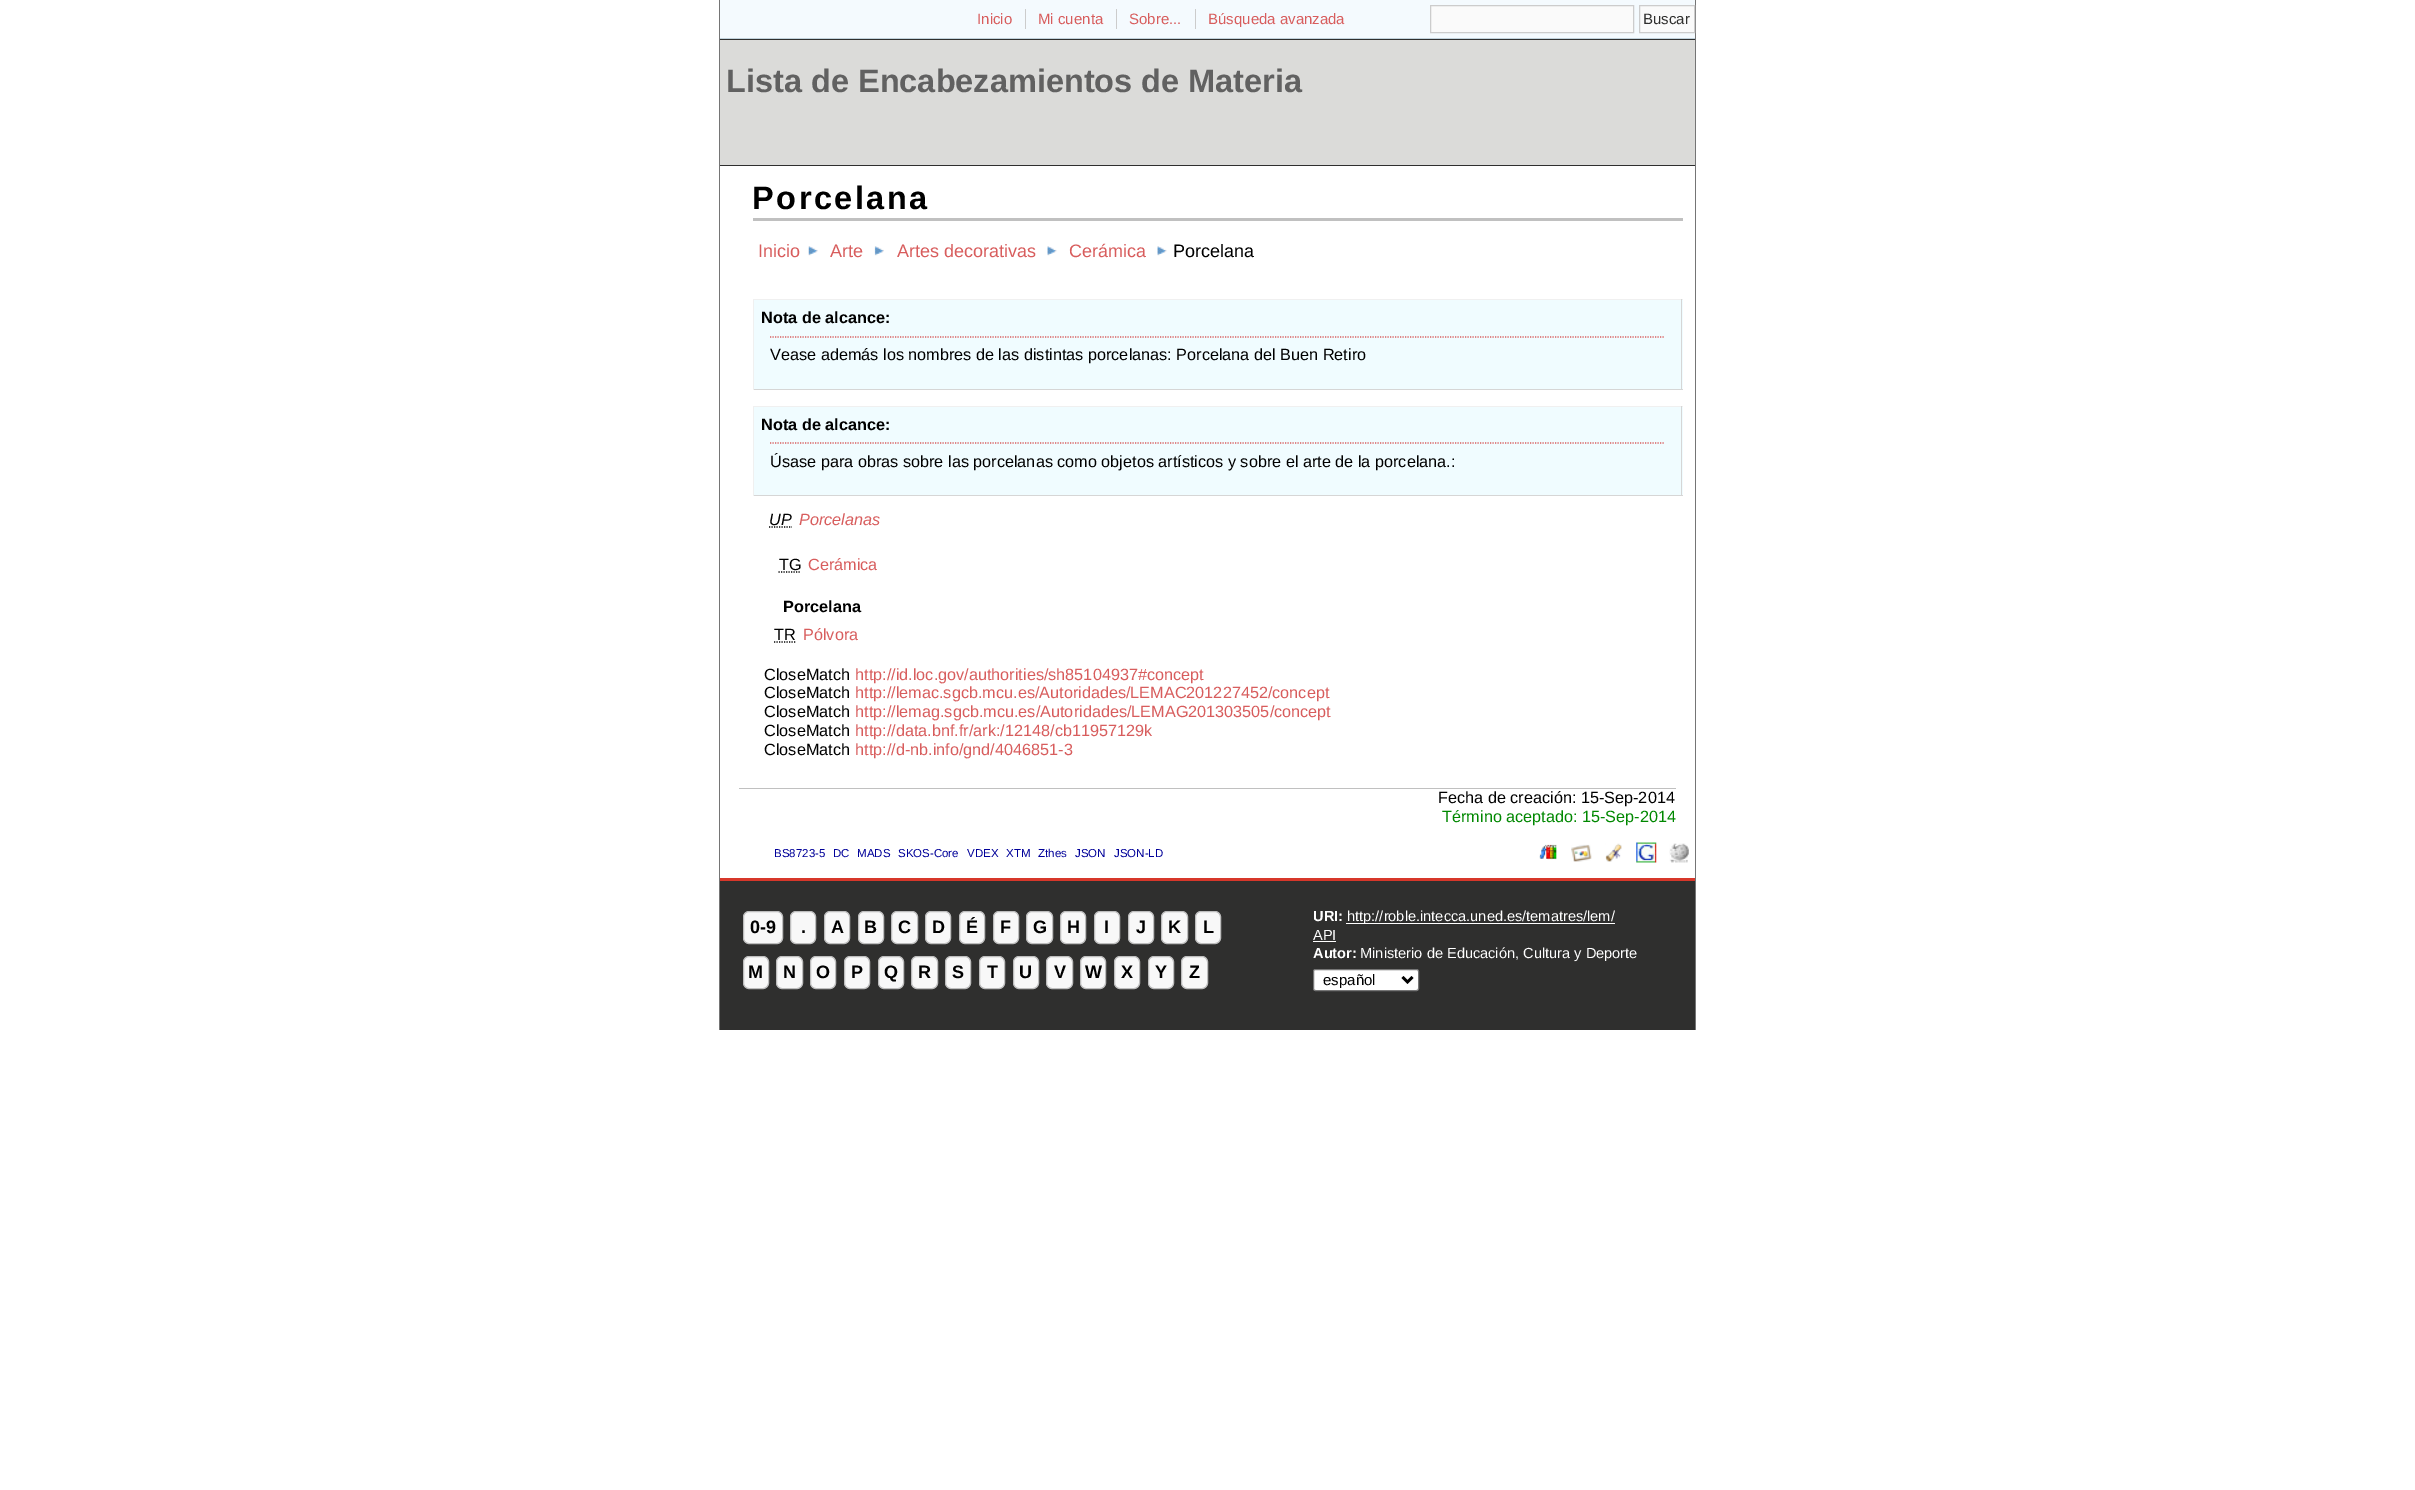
%!PS-Adobe-3.0
%%BoundingBox: 0 0 2415 1490
%%LanguageLevel: 3
%%Pages: 1
%%EndComments
%%BeginProlog
/setink { dup -16 bitshift 255 div exch dup -8 bitshift 255 and 255 div exch 255 and 255 div setrgbcolor } def
/usefont { [ exch dup neg 0 0 3 -1 roll 0 0 ] selectfont } def
/rrect { 5 dict begin { /r /h /w /y /x } { exch def } forall
  x r add y moveto x w add y 2 copy h add r arct x w add y h add x 1 index r arct
  x y h add x y r arct x y 2 copy exch w add exch r arct closepath end } def
/drawimage { 5 dict begin { /h /w /y /x /name } { exch def } forall
  gsave x y translate w h scale
  w h 8 [w 0 0 h 0 0] name (r) file false 3 colorimage grestore end } def
%%EndProlog
%%BeginSetup
<< /PageSize [2415 1490] >> setpagedevice
%%EndSetup
%%Page: 1 1
0 1490 translate 1 -1 scale
4 setmiterlimit
16#FFFFFF setink
0 0 2415 1490 rectfill
[
    [1695 0 1 1030 16#757575]
    [719 0 1 1030 16#757575]
    [720 0 975 38 16#F4FAFE]
    [720 38 975 1 16#C0D1DB]
] { aload pop setink rectfill } forall
/LiberationSans-Regular 15 usefont
16#D85D5D setink
977 24 moveto (Inicio) show
1038 24 moveto (Mi cuenta) show
16#CCCCCC setink
1025 9 1 20 rectfill
16#D85D5D setink
1129 24 moveto (Sobre...) show
16#CCCCCC setink
1116 9 1 20 rectfill
16#D85D5D setink
1208 24 moveto (Búsqueda avanzada) show
16#CCCCCC setink
1195 9 1 20 rectfill
16#FAFAFA setink
1430.5 5.5 moveto 1633.5 5.5 lineto 1633.5 32.5 lineto 1430.5 32.5 lineto closepath gsave fill grestore
16#CCCCCC setink
stroke
16#FAFAFA setink
1639.5 5.5 moveto 1694.5 5.5 lineto 1694.5 32.5 lineto 1639.5 32.5 lineto closepath gsave fill grestore
16#CCCCCC setink
stroke
16#2F2F2E setink
1643 24 moveto (Buscar) show
[
    [720 40 975 125 16#DBDBD9]
    [720 39 975 1 16#2F2F2E]
    [720 165 975 1 16#2F2F2E]
] { aload pop setink rectfill } forall
/LiberationSans-Bold 32.5 usefont
16#616161 setink
726 92 moveto (Lista de Encabezamientos de Materia) show
16#C0C0C0 setink
753 218 930 3 rectfill
16#000000 setink
752 209 moveto 2.5 0 (Porcelana) ashow
/LiberationSans-Regular 18 usefont
16#D85D5D setink
758 257 moveto (Inicio) show
(img1.raw) 808 246 10 10 drawimage
830 257 moveto (Arte) show
(img2.raw) 874 246 10 10 drawimage
897 257 moveto (Artes decorativas) show
(img3.raw) 1047 246 10 10 drawimage
1069 257 moveto (Cerámica) show
(img3.raw) 1157 246 10 10 drawimage
16#000000 setink
1173 257 moveto (Porcelana) show
[
    [754 300 929 89 16#F0FCFF]
    [753 299 930 1 16#F0F0F0]
    [1681 299 1 91 16#D6D6D6]
    [753 389 930 1 16#D6D6D6]
    [753 299 1 91 16#F0F0F0]
] { aload pop setink rectfill } forall
/LiberationSans-Bold 16.25 usefont
16#000000 setink
761 323 moveto (Nota de alcance:) show
16#D85D5D setink
1.2 setlinewidth
[1.25 1.25] 0 setdash
770 337 moveto 1664 337 lineto stroke
/LiberationSans-Regular 16.25 usefont
16#000000 setink
770 360 moveto (Vease además los nombres de las distintas porcelanas: Porcelana del Buen Retiro) show
[
    [754 407 929 88 16#F0FCFF]
    [753 406 930 1 16#F0F0F0]
    [1681 406 1 90 16#D6D6D6]
    [753 495 930 1 16#D6D6D6]
    [753 406 1 90 16#F0F0F0]
] { aload pop setink rectfill } forall
/LiberationSans-Bold 16.25 usefont
16#000000 setink
761 430 moveto (Nota de alcance:) show
16#D85D5D setink
770 443 moveto 1664 443 lineto stroke
/LiberationSans-Regular 16.25 usefont
16#000000 setink
770 467 moveto (Úsase para obras sobre las porcelanas como objetos artísticos y sobre el arte de la porcelana.:) show
/LiberationSans-Italic 16.25 usefont
769 525 moveto (UP) show
769 527 moveto 792 527 lineto stroke
16#D85D5D setink
799 525 moveto (Porcelanas) show
/LiberationSans-Regular 16.25 usefont
16#000000 setink
779 570 moveto (TG) show
778.5 572 moveto 801 572 lineto stroke
16#D85D5D setink
808 570 moveto (Cerámica) show
/LiberationSans-Bold 16.25 usefont
16#000000 setink
783 612 moveto (Porcelana) show
/LiberationSans-Regular 16.25 usefont
774 640 moveto (TR) show
774 642 moveto 795.5 642 lineto stroke
16#D85D5D setink
803 640 moveto (Pólvora) show
16#000000 setink
764 680 moveto (CloseMatch) show
16#D85D5D setink
855 680 moveto (http://id.loc.gov/authorities/sh85104937#concept) show
16#000000 setink
764 698 moveto (CloseMatch) show
16#D85D5D setink
855 698 moveto (http://lemac.sgcb.mcu.es/Autoridades/LEMAC201227452/concept) show
16#000000 setink
764 717 moveto (CloseMatch) show
16#D85D5D setink
855 717 moveto (http://lemag.sgcb.mcu.es/Autoridades/LEMAG201303505/concept) show
16#000000 setink
764 736 moveto (CloseMatch) show
16#D85D5D setink
855 736 moveto (http://data.bnf.fr/ark:/12148/cb11957129k) show
16#000000 setink
764 755 moveto (CloseMatch) show
16#D85D5D setink
855 755 moveto (http://d-nb.info/gnd/4046851-3) show
16#C0C0C0 setink
739 788 937 1 rectfill
16#000000 setink
1438 803 moveto (Fecha de creación: 15-Sep-2014) show
16#008800 setink
1442 822 moveto (Término aceptado: 15-Sep-2014) show
/LiberationSans-Regular 11.5 usefont
16#000099 setink
[
    [(BS8723-5) 774 857]
    [(DC) 833 857]
    [(MADS) 857 857]
    [(SKOS-Core) 898 857]
    [(VDEX) 967 857]
    [(XTM) 1006 857]
    [(Zthes) 1038 857]
    [(JSON) 1075 857]
    [(JSON-LD) 1114 857]
] { aload pop moveto show } forall
(img4.raw) 1539 844 18 16 drawimage
(img5.raw) 1571 844 21 18 drawimage
(img6.raw) 1605 843 17 19 drawimage
(img7.raw) 1636 842 21 21 drawimage
(img8.raw) 1669 843 20 20 drawimage
16#2F2F2E setink
720 881 975 149 rectfill
16#D7372A setink
720 878 975 3 rectfill
16#F8F8F8 setink
743.5 911.5 39 32 5.5 rrect gsave fill grestore
16#BDBDBD setink
1 setlinewidth
[] 0 setdash
stroke
/LiberationSans-Bold 18 usefont
16#000000 setink
750 933 moveto (0-9) show
16#F8F8F8 setink
790.5 911.5 25 32 5.5 rrect gsave fill grestore
16#BDBDBD setink
stroke
16#000000 setink
801 933 moveto (.) show
16#F8F8F8 setink
824.5 911.5 25 32 5.5 rrect gsave fill grestore
16#BDBDBD setink
stroke
16#000000 setink
831 933 moveto (A) show
16#F8F8F8 setink
858.5 911.5 25 32 5.5 rrect gsave fill grestore
16#BDBDBD setink
stroke
16#000000 setink
864 933 moveto (B) show
16#F8F8F8 setink
891.5 911.5 26 32 5.5 rrect gsave fill grestore
16#BDBDBD setink
stroke
16#000000 setink
898 933 moveto (C) show
16#F8F8F8 setink
925.5 911.5 25 32 5.5 rrect gsave fill grestore
16#BDBDBD setink
stroke
16#000000 setink
932 933 moveto (D) show
16#F8F8F8 setink
959.5 911.5 25 32 5.5 rrect gsave fill grestore
16#BDBDBD setink
stroke
16#000000 setink
966 933 moveto (É) show
16#F8F8F8 setink
993.5 911.5 25 32 5.5 rrect gsave fill grestore
16#BDBDBD setink
stroke
16#000000 setink
1000 933 moveto (F) show
16#F8F8F8 setink
1026.5 911.5 26 32 5.5 rrect gsave fill grestore
16#BDBDBD setink
stroke
16#000000 setink
1033 933 moveto (G) show
16#F8F8F8 setink
1060.5 911.5 25 32 5.5 rrect gsave fill grestore
16#BDBDBD setink
stroke
16#000000 setink
1067 933 moveto (H) show
16#F8F8F8 setink
1094.5 911.5 25 32 5.5 rrect gsave fill grestore
16#BDBDBD setink
stroke
16#000000 setink
1104 933 moveto (I) show
16#F8F8F8 setink
1128.5 911.5 25 32 5.5 rrect gsave fill grestore
16#BDBDBD setink
stroke
16#000000 setink
1136 933 moveto (J) show
16#F8F8F8 setink
1161.5 911.5 26 32 5.5 rrect gsave fill grestore
16#BDBDBD setink
stroke
16#000000 setink
1168 933 moveto (K) show
16#F8F8F8 setink
1195.5 911.5 25 32 5.5 rrect gsave fill grestore
16#BDBDBD setink
stroke
16#000000 setink
1203 933 moveto (L) show
16#F8F8F8 setink
743.5 956.5 25 32 5.5 rrect gsave fill grestore
16#BDBDBD setink
stroke
16#000000 setink
748 978 moveto (M) show
16#F8F8F8 setink
776.5 956.5 26 32 5.5 rrect gsave fill grestore
16#BDBDBD setink
stroke
16#000000 setink
783 978 moveto (N) show
16#F8F8F8 setink
810.5 956.5 25 32 5.5 rrect gsave fill grestore
16#BDBDBD setink
stroke
16#000000 setink
816 978 moveto (O) show
16#F8F8F8 setink
844.5 956.5 25 32 5.5 rrect gsave fill grestore
16#BDBDBD setink
stroke
16#000000 setink
851 978 moveto (P) show
16#F8F8F8 setink
878.5 956.5 25 32 5.5 rrect gsave fill grestore
16#BDBDBD setink
stroke
16#000000 setink
884 978 moveto (Q) show
16#F8F8F8 setink
911.5 956.5 26 32 5.5 rrect gsave fill grestore
16#BDBDBD setink
stroke
16#000000 setink
918 978 moveto (R) show
16#F8F8F8 setink
945.5 956.5 25 32 5.5 rrect gsave fill grestore
16#BDBDBD setink
stroke
16#000000 setink
952 978 moveto (S) show
16#F8F8F8 setink
979.5 956.5 25 32 5.5 rrect gsave fill grestore
16#BDBDBD setink
stroke
16#000000 setink
987 978 moveto (T) show
16#F8F8F8 setink
1013.5 956.5 25 32 5.5 rrect gsave fill grestore
16#BDBDBD setink
stroke
16#000000 setink
1019 978 moveto (U) show
16#F8F8F8 setink
1046.5 956.5 26 32 5.5 rrect gsave fill grestore
16#BDBDBD setink
stroke
16#000000 setink
1054 978 moveto (V) show
16#F8F8F8 setink
1080.5 956.5 25 32 5.5 rrect gsave fill grestore
16#BDBDBD setink
stroke
16#000000 setink
1085 978 moveto (W) show
16#F8F8F8 setink
1114.5 956.5 25 32 5.5 rrect gsave fill grestore
16#BDBDBD setink
stroke
16#000000 setink
1121 978 moveto (X) show
16#F8F8F8 setink
1148.5 956.5 25 32 5.5 rrect gsave fill grestore
16#BDBDBD setink
stroke
16#000000 setink
1155 978 moveto (Y) show
16#F8F8F8 setink
1181.5 956.5 26 32 5.5 rrect gsave fill grestore
16#BDBDBD setink
stroke
16#000000 setink
1189 978 moveto (Z) show
/LiberationSans-Bold 14.6 usefont
16#FFFFFF setink
1313 921 moveto (URI:) show
1346 923 269 1 rectfill
/LiberationSans-Regular 14.6 usefont
1347 921 moveto (http://roble.intecca.uned.es/tematres/lem/) show
1313 940 moveto (API) show
1313 941 23 1 rectfill
/LiberationSans-Bold 14.6 usefont
1313 958 moveto (Autor:) show
/LiberationSans-Regular 14.6 usefont
1360 958 moveto (Ministerio de Educación, Cultura y Deporte) show
1313.5 969.5 105 21 2 rrect gsave fill grestore
16#767676 setink
stroke
16#000000 setink
2.5 setlinewidth
1402.5 977 moveto 1407.5 982 lineto 1412.5 977 lineto stroke
/LiberationSans-Regular 15 usefont
1323 985 moveto (español) show
showpage
%%EOF
